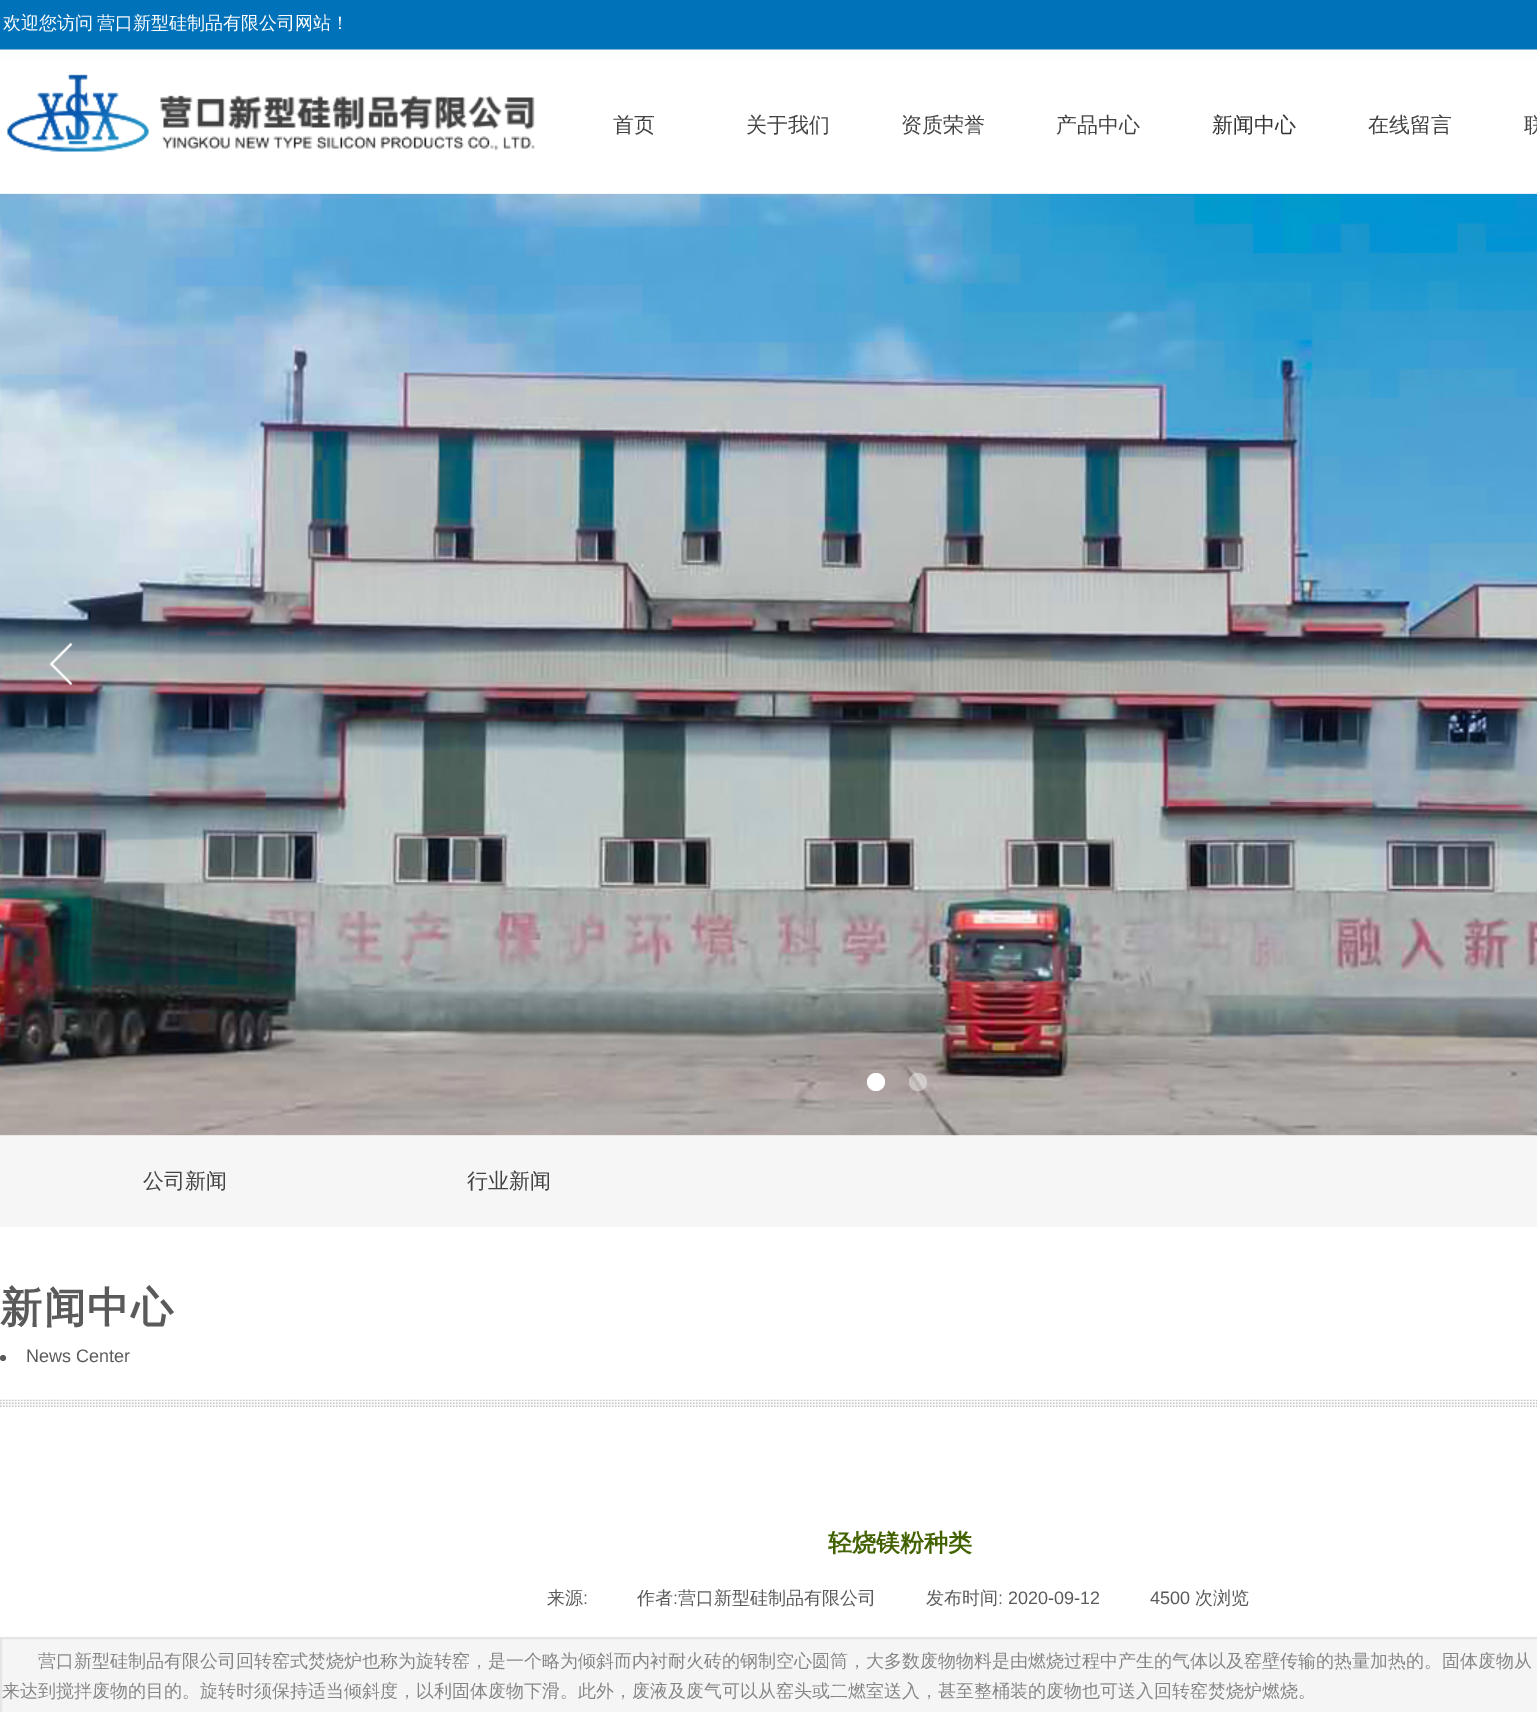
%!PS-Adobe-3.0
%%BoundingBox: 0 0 1537 1712
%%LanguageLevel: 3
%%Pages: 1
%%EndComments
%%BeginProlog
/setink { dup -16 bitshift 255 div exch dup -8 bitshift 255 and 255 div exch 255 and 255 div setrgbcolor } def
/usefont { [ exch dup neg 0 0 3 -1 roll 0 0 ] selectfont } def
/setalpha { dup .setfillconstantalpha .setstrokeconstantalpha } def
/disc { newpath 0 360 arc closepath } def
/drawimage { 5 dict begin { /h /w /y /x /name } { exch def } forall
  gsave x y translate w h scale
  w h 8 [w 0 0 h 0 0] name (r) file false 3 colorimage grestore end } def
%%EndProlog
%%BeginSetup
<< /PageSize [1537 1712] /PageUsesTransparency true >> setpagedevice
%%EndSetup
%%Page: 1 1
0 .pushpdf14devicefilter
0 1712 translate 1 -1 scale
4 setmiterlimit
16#FFFFFF setink
0 0 1537 1712 rectfill
(img3.raw) 0 193 1537 943 drawimage
(img1.raw) 0 0 1537 194 drawimage
/WenQuanYiZenHei-Medium 18 usefont
3 29 moveto -1 0 32 (欢迎您访问 营口新型硅制品有限公司网站！) widthshow
(img2.raw) 7 74 528 78 drawimage
/WenQuanYiZenHei-Medium 21 usefont
16#434343 setink
[
    [(首页) 613 132]
    [(关于我们) 746 132]
    [(资质荣誉) 901 132]
    [(产品中心) 1056 132]
] { aload pop moveto show } forall
16#333333 setink
1212 132 moveto (新闻中心) show
16#434343 setink
1368 132 moveto (在线留言) show
1524 132 moveto (联) show
(img4.raw) 49 642 24 44 drawimage
16#FFFFFF setink
876 1082 9 disc fill
0.4 setalpha
918 1082 9 disc fill
1 setalpha
16#F6F6F6 setink
0 1136 1537 91 rectfill
16#434343 setink
143 1188 moveto (公司新闻) show
467 1188 moveto (行业新闻) show
/WenQuanYiZenHei-Bold 42 usefont
16#5A5A5A setink
0 1322 moveto 1.5 0 (新闻中心) ashow
3 1358 3 disc fill
/LiberationSans-Regular 18 usefont
26 1362 moveto (News Center) show
(img5.raw) 0 1399 1537 8 drawimage
/WenQuanYiZenHei-Bold 24 usefont
16#426100 setink
828 1551 moveto (轻烧镁粉种类) show
/WenQuanYiZenHei-Medium 18 usefont
16#5A5A5A setink
547 1604 moveto (来源) show
/LiberationSans-Regular 18 usefont
583 1604 moveto (:) show
/WenQuanYiZenHei-Medium 18 usefont
637 1604 moveto (作者) show
/LiberationSans-Regular 18 usefont
673 1604 moveto (:) show
/WenQuanYiZenHei-Medium 18 usefont
678 1604 moveto (营口新型硅制品有限公司) show
926 1604 moveto (发布时间) show
/LiberationSans-Regular 18 usefont
998 1604 moveto (: 2020-09-12) show
1150 1604 moveto (4500) show
/WenQuanYiZenHei-Medium 18 usefont
1195 1604 moveto (次浏览) show
16#F5F5F5 setink
1 1638 moveto 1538 1638 lineto 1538 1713 lineto 1 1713 lineto closepath gsave fill grestore
16#E5E5E5 setink
2 setlinewidth
stroke
16#868686 setink
38 1667 moveto (营口新型硅制品有限公司回转窑式焚烧炉也称为旋转窑，是一个略为倾斜而内衬耐火砖的钢制空心圆筒，大多数废物物料是由燃烧过程中产生的气体以及窑壁传输的热量加热的。固体废物从) show
2 1697 moveto (来达到搅拌废物的目的。旋转时须保持适当倾斜度，以利固体废物下滑。此外，废液及废气可以从窑头或二燃室送入，甚至整桶装的废物也可送入回转窑焚烧炉燃烧。) show
.poppdf14devicefilter showpage
%%EOF
